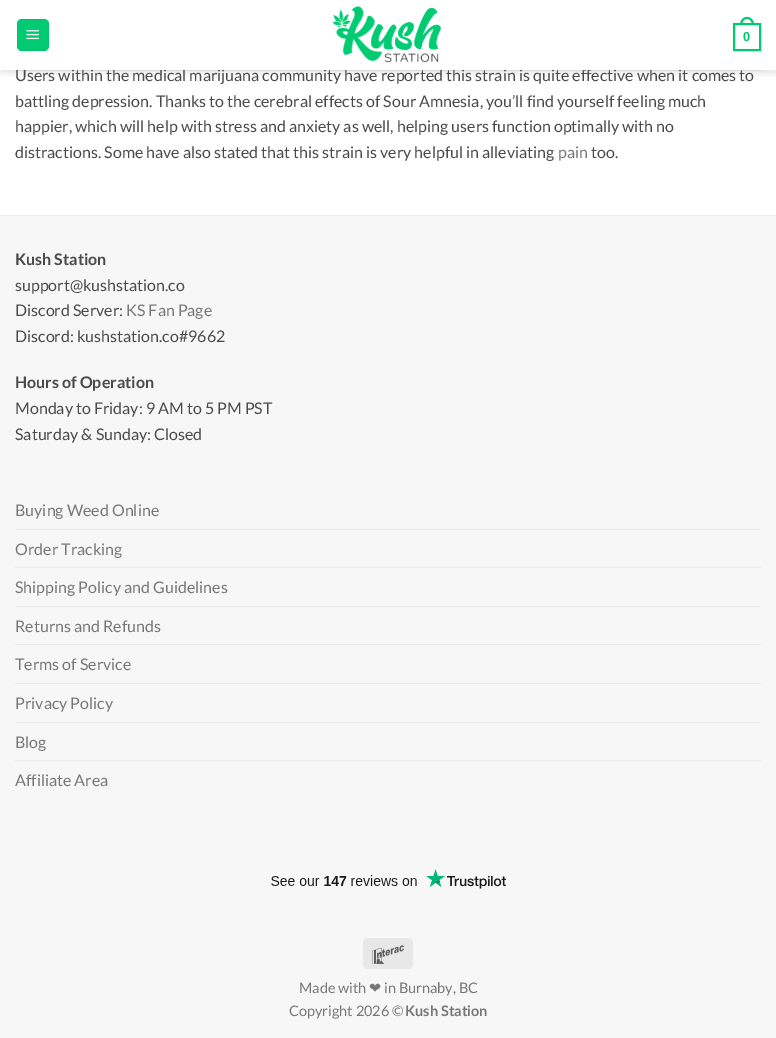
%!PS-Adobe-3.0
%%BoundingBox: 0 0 776 1038
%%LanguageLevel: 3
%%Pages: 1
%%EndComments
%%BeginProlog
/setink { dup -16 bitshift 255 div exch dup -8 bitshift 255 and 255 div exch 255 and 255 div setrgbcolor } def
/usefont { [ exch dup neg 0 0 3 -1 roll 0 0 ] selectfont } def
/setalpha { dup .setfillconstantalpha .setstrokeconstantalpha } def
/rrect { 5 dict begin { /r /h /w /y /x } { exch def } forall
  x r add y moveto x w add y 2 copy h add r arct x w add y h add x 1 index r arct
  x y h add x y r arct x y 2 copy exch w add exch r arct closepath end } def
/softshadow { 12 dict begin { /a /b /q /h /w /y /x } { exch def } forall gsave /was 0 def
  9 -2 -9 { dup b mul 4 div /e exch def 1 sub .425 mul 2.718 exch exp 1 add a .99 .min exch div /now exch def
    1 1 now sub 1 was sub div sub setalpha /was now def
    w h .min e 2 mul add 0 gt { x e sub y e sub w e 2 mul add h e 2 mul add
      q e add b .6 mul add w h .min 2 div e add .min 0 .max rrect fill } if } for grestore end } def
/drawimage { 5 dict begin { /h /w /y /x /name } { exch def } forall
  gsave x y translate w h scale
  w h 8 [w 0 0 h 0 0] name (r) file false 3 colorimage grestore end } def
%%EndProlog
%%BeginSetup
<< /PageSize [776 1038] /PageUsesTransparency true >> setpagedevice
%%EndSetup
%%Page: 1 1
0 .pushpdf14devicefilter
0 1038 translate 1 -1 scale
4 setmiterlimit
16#FFFFFF setink
0 0 776 1038 rectfill
gsave
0 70 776 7 rectclip
16#000000 setink
1 1 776 70 0 5 0.15 softshadow
grestore
16#00CB72 setink
17 19 32 32 5 rrect fill
0.05 setalpha
16#000000 setink
17.5 19.5 31 31 rectstroke
1 setalpha
(img1.raw) 26 30 13 10 drawimage
(img2.raw) 332 6 110 57 drawimage
16#00CB72 setink
2 setlinewidth
734 24 26 26 rectstroke
747 17 moveto 751.5 17 754 21 754 25 curveto 740 25 lineto 740 21 742.5 17 747 17 curveto closepath 747 19 moveto 750.5 19 752 22 752 25 curveto 742 25 lineto 742 22 743.5 19 747 19 curveto closepath eofill
/LiberationSans-Bold 13 usefont
743 41 moveto (0) show
0.1 setalpha
16#4A4A4A setink
15 70 746 1 rectfill
/Lato-Regular 16 usefont
1 setalpha
15 81 moveto (Users within the medical marijuana community have reported this strain is quite effective when it comes to) show
0.9 setalpha
16#FFFFFF setink
16 69 666 1 rectfill
1 setalpha
16#4A4A4A setink
[
    [(battling depression. Thanks to the cerebral effects of Sour Amnesia, you’ll find yourself feeling much) 15 107]
    [(happier, which will help with stress and anxiety as well, helping users function optimally with no) 15 132]
    [(distractions. Some have also stated that this strain is very helpful in alleviating) 15 158]
] { aload pop moveto show } forall
16#777777 setink
558 158 moveto (pain) show
16#4A4A4A setink
591 158 moveto (too.) show
16#F7F7F7 setink
0 216 776 822 rectfill
16#EBEBEB setink
0 215 776 1 rectfill
/Lato-Bold 16 usefont
16#4A4A4A setink
15 265 moveto (Kush Station) show
/Lato-Regular 16 usefont
15 291 moveto (support@kushstation.co) show
15 316 moveto (Discord Server:) show
16#777777 setink
126 316 moveto (KS Fan Page) show
16#4A4A4A setink
15 342 moveto (Discord: kushstation.co#9662) show
/Lato-Bold 16 usefont
15 388 moveto (Hours of Operation) show
/Lato-Regular 16 usefont
15 414 moveto (Monday to Friday: 9 AM to 5 PM PST) show
15 440 moveto (Saturday & Sunday: Closed) show
16#777777 setink
15 516 moveto (Buying Weed Online) show
16#ECECEC setink
15 529 746 1 rectfill
16#777777 setink
15 555 moveto (Order Tracking) show
16#ECECEC setink
15 567 746 1 rectfill
16#777777 setink
15 593 moveto (Shipping Policy and Guidelines) show
16#ECECEC setink
15 606 746 1 rectfill
16#777777 setink
15 632 moveto (Returns and Refunds) show
16#ECECEC setink
15 644 746 1 rectfill
16#777777 setink
15 670 moveto (Terms of Service) show
16#ECECEC setink
15 683 746 1 rectfill
16#777777 setink
15 709 moveto (Privacy Policy) show
16#ECECEC setink
15 722 746 1 rectfill
16#777777 setink
15 748 moveto (Blog) show
16#ECECEC setink
15 760 746 1 rectfill
16#777777 setink
15 786 moveto (Affiliate Area) show
(img3.raw) 271 869 235 20 drawimage
16#E8E8E8 setink
363 938 50 31 5 rrect fill
(img4.raw) 372 945 32 19 drawimage
/Lato-Regular 14.5 usefont
16#777777 setink
299 993 moveto (Made with) show
/DejaVuSans-Regular 14.5 usefont
369 993 moveto (❤) show
/Lato-Regular 14.5 usefont
384 993 moveto (in Burnaby, BC) show
289 1016 moveto (Copyright 2026 ©) show
/Lato-Bold 14.5 usefont
405 1016 moveto (Kush Station) show
.poppdf14devicefilter showpage
%%EOF
